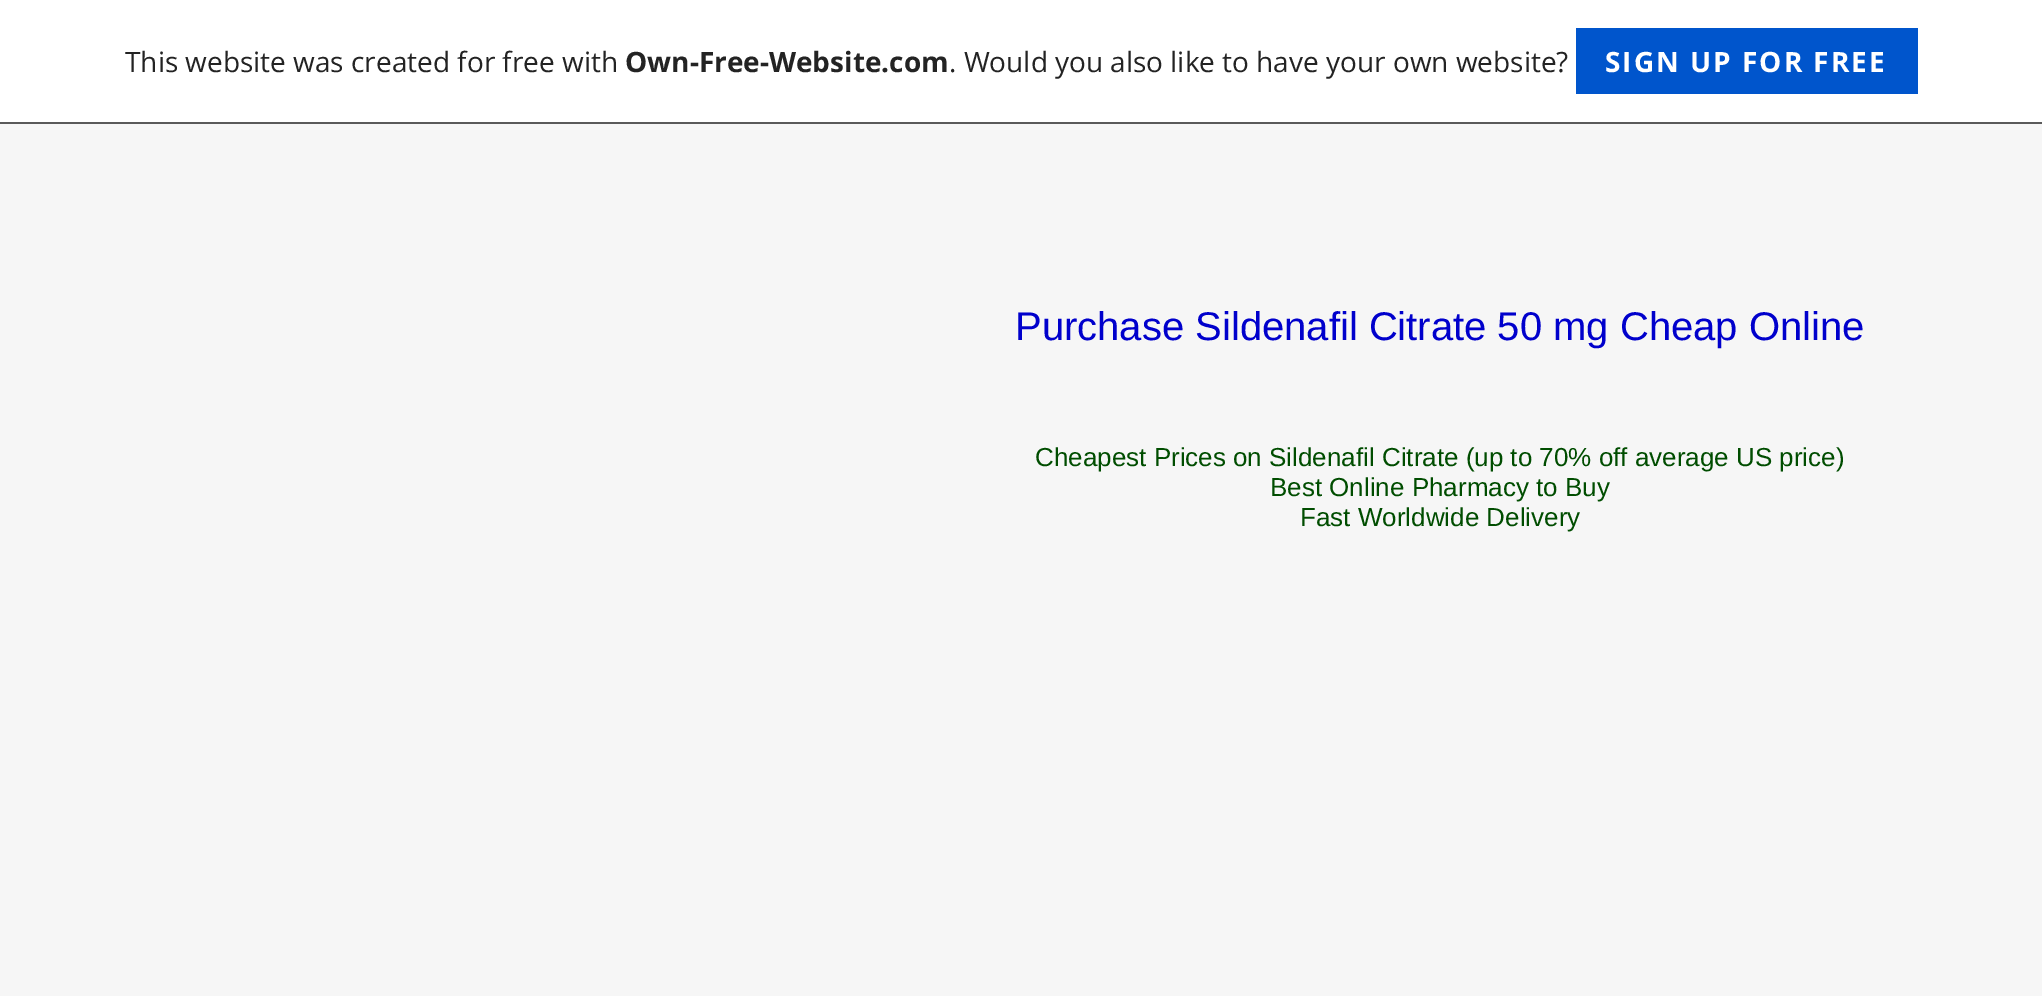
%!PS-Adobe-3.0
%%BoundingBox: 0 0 2042 996
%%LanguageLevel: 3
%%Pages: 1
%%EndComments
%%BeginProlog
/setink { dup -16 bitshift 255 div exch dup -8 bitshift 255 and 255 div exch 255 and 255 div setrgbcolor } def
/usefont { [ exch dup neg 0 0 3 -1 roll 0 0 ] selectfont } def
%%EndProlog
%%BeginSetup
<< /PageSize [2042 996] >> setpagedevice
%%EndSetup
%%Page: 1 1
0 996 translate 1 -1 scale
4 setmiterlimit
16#F6F6F6 setink
0 0 2042 996 rectfill
16#FFFFFF setink
0 0 2042 122 rectfill
16#5A5A5A setink
0 122 2042 2 rectfill
/OpenSans-Regular 28 usefont
16#232323 setink
125 72 moveto (This website was created for free with) show
/OpenSans-Bold 28 usefont
625 72 moveto (Own-Free-Website.com) show
/OpenSans-Regular 28 usefont
949 72 moveto (. Would you also like to have your own website?) show
16#0055CC setink
1576 28 342 66 rectfill
/OpenSans-Bold 28 usefont
16#FFFFFF setink
1605 72 moveto 2 0 (SIGN UP FOR FREE) ashow
/LiberationSans-Regular 40 usefont
16#0000CC setink
1015 340 moveto (Purchase Sildenafil Citrate 50 mg Cheap Online) show
/LiberationSans-Regular 26 usefont
16#004D00 setink
[
    [(Cheapest Prices on Sildenafil Citrate \(up to 70% off average US price\)) 1035 466]
    [(Best Online Pharmacy to Buy) 1270 496]
    [(Fast Worldwide Delivery) 1300 526]
] { aload pop moveto show } forall
showpage
%%EOF
